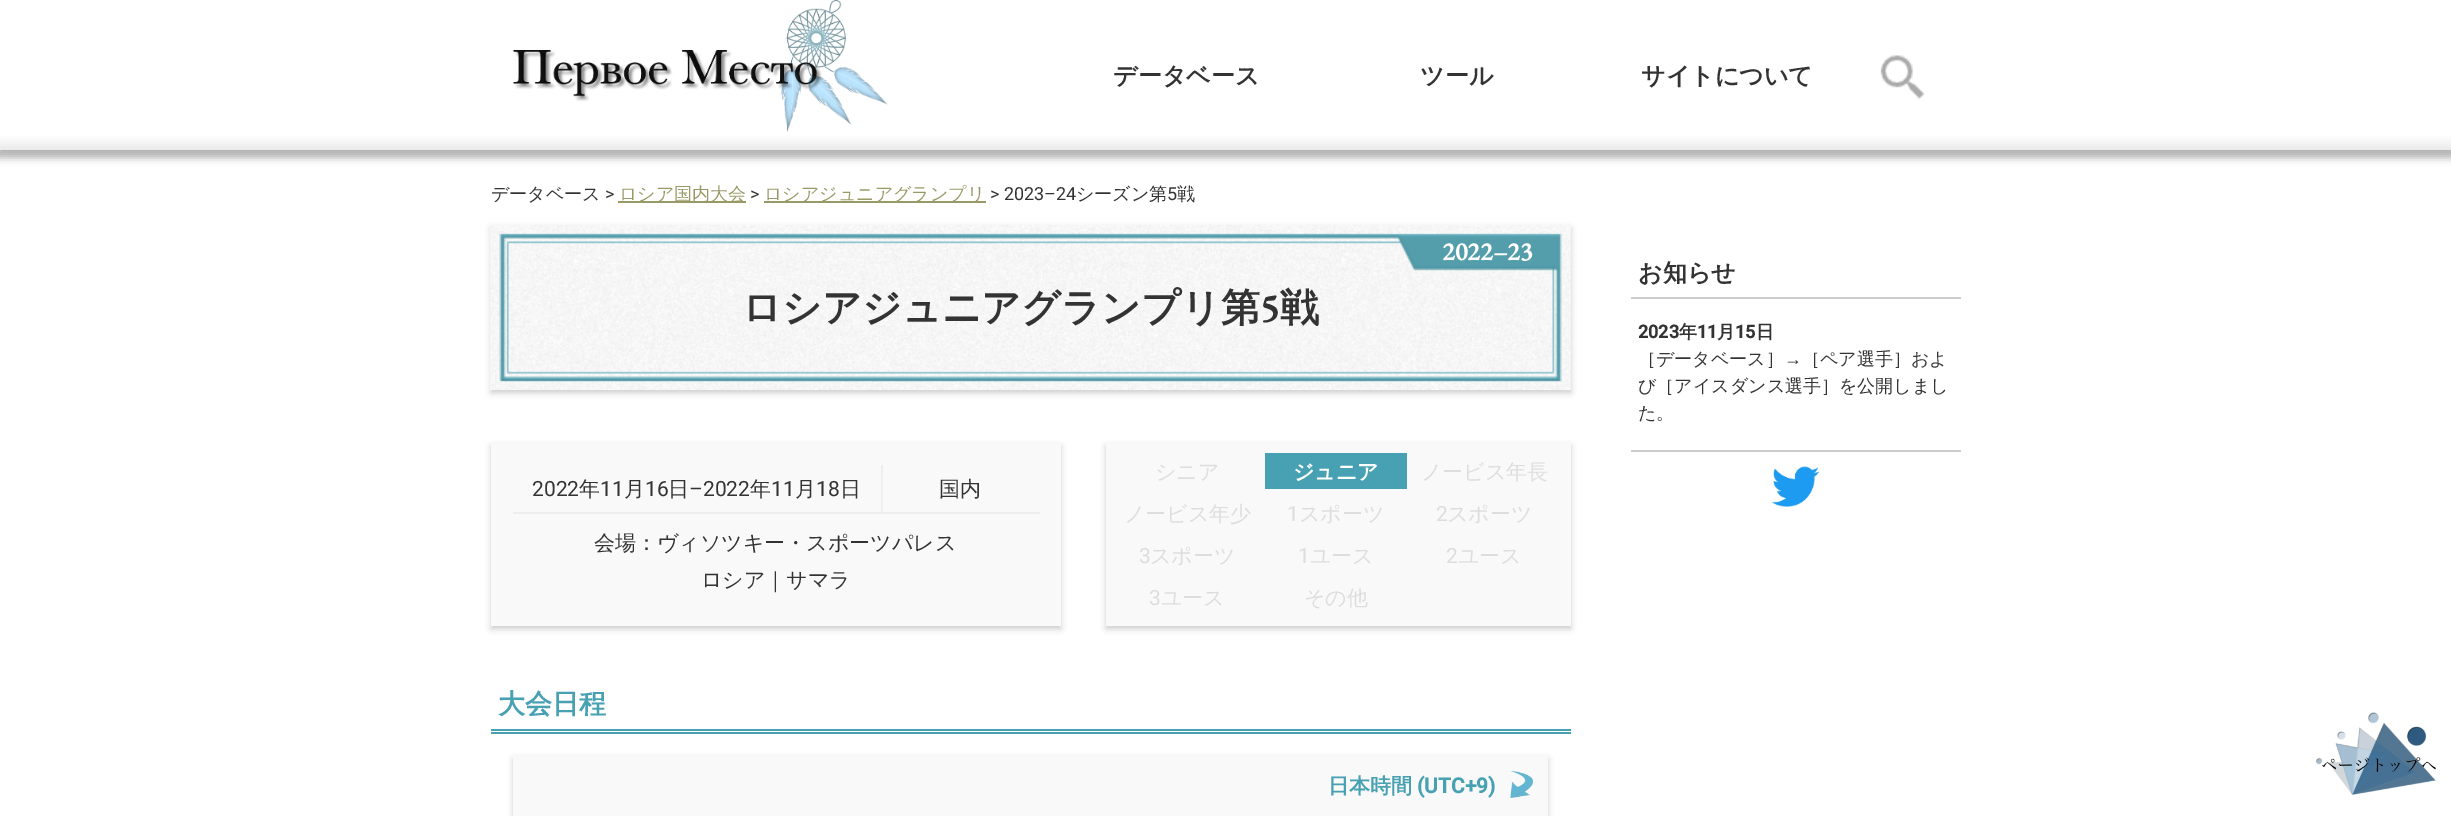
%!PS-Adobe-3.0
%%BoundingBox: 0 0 2451 816
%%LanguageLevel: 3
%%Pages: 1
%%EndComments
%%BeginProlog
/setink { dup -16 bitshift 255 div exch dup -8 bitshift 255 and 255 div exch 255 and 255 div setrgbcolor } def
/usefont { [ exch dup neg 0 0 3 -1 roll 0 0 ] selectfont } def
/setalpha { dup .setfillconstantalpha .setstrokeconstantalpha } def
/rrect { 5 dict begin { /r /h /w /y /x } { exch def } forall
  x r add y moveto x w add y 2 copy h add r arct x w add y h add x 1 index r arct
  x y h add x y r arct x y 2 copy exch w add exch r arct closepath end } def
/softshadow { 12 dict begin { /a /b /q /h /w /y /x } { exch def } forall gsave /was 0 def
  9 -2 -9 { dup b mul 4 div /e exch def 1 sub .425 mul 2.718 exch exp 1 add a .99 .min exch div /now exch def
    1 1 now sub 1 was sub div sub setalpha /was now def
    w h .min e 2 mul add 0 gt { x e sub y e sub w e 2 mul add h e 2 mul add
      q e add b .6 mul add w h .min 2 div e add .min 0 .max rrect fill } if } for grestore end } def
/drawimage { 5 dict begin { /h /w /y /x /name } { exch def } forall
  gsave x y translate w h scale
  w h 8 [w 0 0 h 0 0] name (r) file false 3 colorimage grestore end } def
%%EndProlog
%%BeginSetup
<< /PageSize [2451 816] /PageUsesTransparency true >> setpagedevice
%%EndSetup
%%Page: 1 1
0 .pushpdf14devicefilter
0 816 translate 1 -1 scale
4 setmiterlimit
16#FFFFFF setink
0 0 2451 816 rectfill
16#000000 setink
-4 -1 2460 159 0 4 0.3 softshadow
gsave 0 0 moveto 2451 0 lineto 2451 150 lineto 0 150 lineto closepath clip newpath
<< /ShadingType 2 /ColorSpace /DeviceRGB /Coords [1226 0 1226 150] /Extend [true true] /Function << /FunctionType 3 /Domain [0 1] /Functions [<< /FunctionType 2 /Domain [0 1] /C0 [1 1 1] /C1 [1 1 1] /N 1 >> << /FunctionType 2 /Domain [0 1] /C0 [1 1 1] /C1 [0.918 0.918 0.918] /N 1 >>] /Bounds [0.9] /Encode [0 1 0 1] >> >> shfill grestore
(img1.raw) 513 0 375 132 drawimage
/WenQuanYiZenHei-Bold 24 usefont
16#333333 setink
[
    [(データベース) 1113 84]
    [(ツール) 1420 84]
    [(サイトについて) 1641 84]
] { aload pop moveto show } forall
(img2.raw) 1880 55 45 45 drawimage
/WenQuanYiZenHei-Medium 18 usefont
491 200 moveto (データベース) show
/Roboto-Regular 18 usefont
605 200 moveto (>) show
16#999966 setink
618 201 128 2 rectfill
/WenQuanYiZenHei-Medium 18 usefont
619 200 moveto (ロシア国内大会) show
/Roboto-Regular 18 usefont
16#333333 setink
750 200 moveto (>) show
16#999966 setink
764 201 222 2 rectfill
/WenQuanYiZenHei-Medium 18 usefont
764 200 moveto (ロシアジュニアグランプリ) show
/Roboto-Regular 18 usefont
16#333333 setink
990 200 moveto (> 2023–24) show
/WenQuanYiZenHei-Medium 18 usefont
1076 200 moveto (シーズン第) show
/Roboto-Regular 18 usefont
1167 200 moveto (5) show
/WenQuanYiZenHei-Medium 18 usefont
1177 200 moveto (戦) show
16#CCCCCC setink
491 228 1080 165 0 3 1 softshadow
(img3.raw) 490 225 1081 165 drawimage
/EBGaramond-Bold 25.5 usefont
16#FFFFFF setink
1442 260 moveto (2022–23) show
/WenQuanYiZenHei-Bold 39 usefont
16#333333 setink
742 321 moveto (ロシアジュニアグランプリ第) show
/EBGaramond-Bold 39 usefont
1260 321 moveto (5) show
/WenQuanYiZenHei-Bold 39 usefont
1280 321 moveto (戦) show
16#CCCCCC setink
491 446 570 183 0 3 1 softshadow
[
    [491 443 570 183 16#F9F9F9]
    [513 512 527 2 16#EEEEEE]
    [881 465 2 48 16#EEEEEE]
] { aload pop setink rectfill } forall
/Roboto-Regular 21 usefont
16#333333 setink
532 496 moveto (2022) show
/WenQuanYiZenHei-Medium 21 usefont
579 496 moveto (年) show
/Roboto-Regular 21 usefont
600 496 moveto (11) show
/WenQuanYiZenHei-Medium 21 usefont
624 496 moveto (月) show
/Roboto-Regular 21 usefont
645 496 moveto (16) show
/WenQuanYiZenHei-Medium 21 usefont
668 496 moveto (日) show
/Roboto-Regular 21 usefont
689 496 moveto (–2022) show
/WenQuanYiZenHei-Medium 21 usefont
750 496 moveto (年) show
/Roboto-Regular 21 usefont
771 496 moveto (11) show
/WenQuanYiZenHei-Medium 21 usefont
795 496 moveto (月) show
/Roboto-Regular 21 usefont
816 496 moveto (18) show
/WenQuanYiZenHei-Medium 21 usefont
[
    [(日) 840 496]
    [(国内) 939 496]
    [(会場：ヴィソツキー・スポーツパレス) 594 550]
    [(ロシア｜サマラ) 701 587]
] { aload pop moveto show } forall
16#CCCCCC setink
1106 446 465 183 0 3 1 softshadow
16#F9F9F9 setink
1106 443 465 183 rectfill
16#DDDDDD setink
1155 479 moveto (シニア) show
16#47A1B3 setink
1265 453 142 36 rectfill
/WenQuanYiZenHei-Bold 21 usefont
16#FFFFFF setink
1293 479 moveto (ジュニア) show
/WenQuanYiZenHei-Medium 21 usefont
16#DDDDDD setink
1421 479 moveto (ノービス年長) show
1124 521 moveto (ノービス年少) show
/Roboto-Regular 21 usefont
1287 521 moveto (1) show
/WenQuanYiZenHei-Medium 21 usefont
1299 521 moveto (スポーツ) show
/Roboto-Regular 21 usefont
1436 521 moveto (2) show
/WenQuanYiZenHei-Medium 21 usefont
1447 521 moveto (スポーツ) show
/Roboto-Regular 21 usefont
1139 563 moveto (3) show
/WenQuanYiZenHei-Medium 21 usefont
1150 563 moveto (スポーツ) show
/Roboto-Regular 21 usefont
1298 563 moveto (1) show
/WenQuanYiZenHei-Medium 21 usefont
1310 563 moveto (ユース) show
/Roboto-Regular 21 usefont
1446 563 moveto (2) show
/WenQuanYiZenHei-Medium 21 usefont
1458 563 moveto (ユース) show
/Roboto-Regular 21 usefont
1149 605 moveto (3) show
/WenQuanYiZenHei-Medium 21 usefont
1161 605 moveto (ユース) show
1304 605 moveto (その他) show
16#47A1B3 setink
491 729 1080 2 rectfill
491 732 1080 2 rectfill
/WenQuanYiZenHei-Bold 27 usefont
498 713 moveto (大会日程) show
16#CCCCCC setink
513 759 1035 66 0 3 1 softshadow
16#F9F9F9 setink
513 756 1035 60 rectfill
/WenQuanYiZenHei-Bold 21 usefont
16#47A1B3 setink
1328 793 moveto (日本時間) show
/Roboto-Bold 21 usefont
1417 793 moveto (\(UTC+9\)) show
(img4.raw) 1510 771 23 27 drawimage
16#CCCCCC setink
1631 297 330 2 rectfill
/WenQuanYiZenHei-Bold 24 usefont
16#333333 setink
1638 281 moveto (お知らせ) show
/Roboto-Bold 18 usefont
1638 338 moveto (2023) show
/WenQuanYiZenHei-Bold 18 usefont
1679 338 moveto (年) show
/Roboto-Bold 18 usefont
1697 338 moveto (11) show
/WenQuanYiZenHei-Bold 18 usefont
1717 338 moveto (月) show
/Roboto-Bold 18 usefont
1735 338 moveto (15) show
/WenQuanYiZenHei-Bold 18 usefont
1756 338 moveto (日) show
/WenQuanYiZenHei-Medium 18 usefont
1638 365 moveto (［データベース］) show
/LiberationSans-Regular 18 usefont
1784 365 moveto (→) show
/WenQuanYiZenHei-Medium 18 usefont
[
    [(［ペア選手］およ) 1802 365]
    [(び［アイスダンス選手］を公開しまし) 1638 392]
    [(た。) 1638 419]
] { aload pop moveto show } forall
16#CCCCCC setink
1631 450 330 2 rectfill
(img5.raw) 1771 466 49 41 drawimage
(img6.raw) 2316 712 120 83 drawimage
.poppdf14devicefilter showpage
%%EOF
